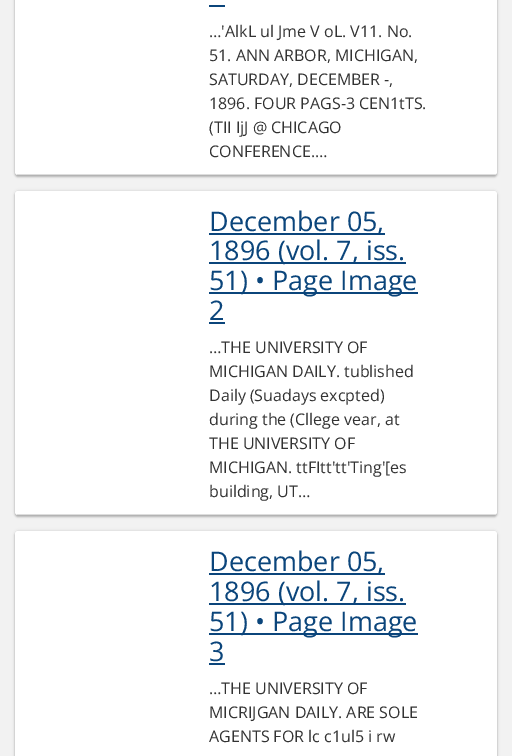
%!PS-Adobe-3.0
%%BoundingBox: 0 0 512 756
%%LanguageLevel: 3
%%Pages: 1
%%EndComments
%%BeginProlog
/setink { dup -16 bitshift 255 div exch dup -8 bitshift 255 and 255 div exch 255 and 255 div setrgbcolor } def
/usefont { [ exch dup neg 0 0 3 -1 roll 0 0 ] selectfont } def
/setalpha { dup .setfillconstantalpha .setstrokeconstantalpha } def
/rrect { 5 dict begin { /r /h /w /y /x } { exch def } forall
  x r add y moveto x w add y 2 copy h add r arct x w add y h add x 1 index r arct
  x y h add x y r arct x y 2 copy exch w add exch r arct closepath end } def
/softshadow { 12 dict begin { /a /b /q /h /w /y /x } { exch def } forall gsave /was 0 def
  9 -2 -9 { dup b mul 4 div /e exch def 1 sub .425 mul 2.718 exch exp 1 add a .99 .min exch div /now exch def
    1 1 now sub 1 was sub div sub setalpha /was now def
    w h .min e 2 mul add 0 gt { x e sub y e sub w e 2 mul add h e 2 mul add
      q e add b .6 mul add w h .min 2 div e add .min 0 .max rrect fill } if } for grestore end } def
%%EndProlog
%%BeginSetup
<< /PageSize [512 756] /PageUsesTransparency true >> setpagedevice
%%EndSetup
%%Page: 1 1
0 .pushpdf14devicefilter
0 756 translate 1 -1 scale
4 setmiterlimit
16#F2F2F2 setink
0 0 512 756 rectfill
16#000000 setink
15 -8 482 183 3 1.5 0.12 softshadow
15 -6 482 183 3 1 0.24 softshadow
16#FFFFFF setink
15 -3 482 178 3 rrect fill
16#DDDDDD setink
17 174 479 1 rectfill
16#0B457B setink
209 5 16 2 rectfill
/OpenSans-Regular 16 usefont
16#333333 setink
[
    [(…'AlkL ul Jme V oL. V11. No.) 209 37]
    [(51. ANN ARBOR, MICHIGAN,) 209 61]
    [(SATURDAY, DECEMBER -,) 209 85]
    [(1896. FOUR PAGS-3 CEN1tTS.) 209 109]
    [(\(TII IjJ @ CHICAGO) 209 133]
    [(CONFERENCE.…) 209 157]
] { aload pop moveto show } forall
16#000000 setink
15 191 482 324 3 1.5 0.12 softshadow
15 193 482 324 3 1 0.24 softshadow
16#FFFFFF setink
15 191 482 324 3 rrect fill
16#DDDDDD setink
17 514 479 1 rectfill
16#0B457B setink
209 233 176 2 rectfill
/OpenSans-Regular 27 usefont
209 231 moveto (December 05,) show
209 262 197 2 rectfill
209 260 moveto (1896 \(vol. 7, iss.) show
209 292 209 2 rectfill
209 290 moveto (51\) • Page Image) show
209 320 moveto (2) show
209 322 16 2 rectfill
/OpenSans-Regular 16 usefont
16#333333 setink
[
    [(…THE UNIVERSITY OF) 209 353]
    [(MICHIGAN DAILY. tublished) 209 377]
    [(Daily \(Suadays excpted\)) 209 401]
    [(during the \(Cllege vear, at) 209 425]
    [(THE UNIVERSITY OF) 209 449]
    [(MICHIGAN. ttFItt'tt'Ting'[es) 209 473]
    [(building, UT…) 209 497]
] { aload pop moveto show } forall
16#000000 setink
15 531 482 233 3 1.5 0.12 softshadow
15 533 482 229 3 1 0.24 softshadow
16#FFFFFF setink
15 531 482 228 3 rrect fill
16#0B457B setink
209 573 176 2 rectfill
/OpenSans-Regular 27 usefont
209 571 moveto (December 05,) show
209 603 197 2 rectfill
209 601 moveto (1896 \(vol. 7, iss.) show
209 633 209 2 rectfill
209 631 moveto (51\) • Page Image) show
209 661 moveto (3) show
209 663 16 2 rectfill
/OpenSans-Regular 16 usefont
16#333333 setink
[
    [(…THE UNIVERSITY OF) 209 694]
    [(MICRIJGAN DAILY. ARE SOLE) 209 718]
    [(AGENTS FOR lc c1ul5 i rw) 209 742]
] { aload pop moveto show } forall
.poppdf14devicefilter showpage
%%EOF
